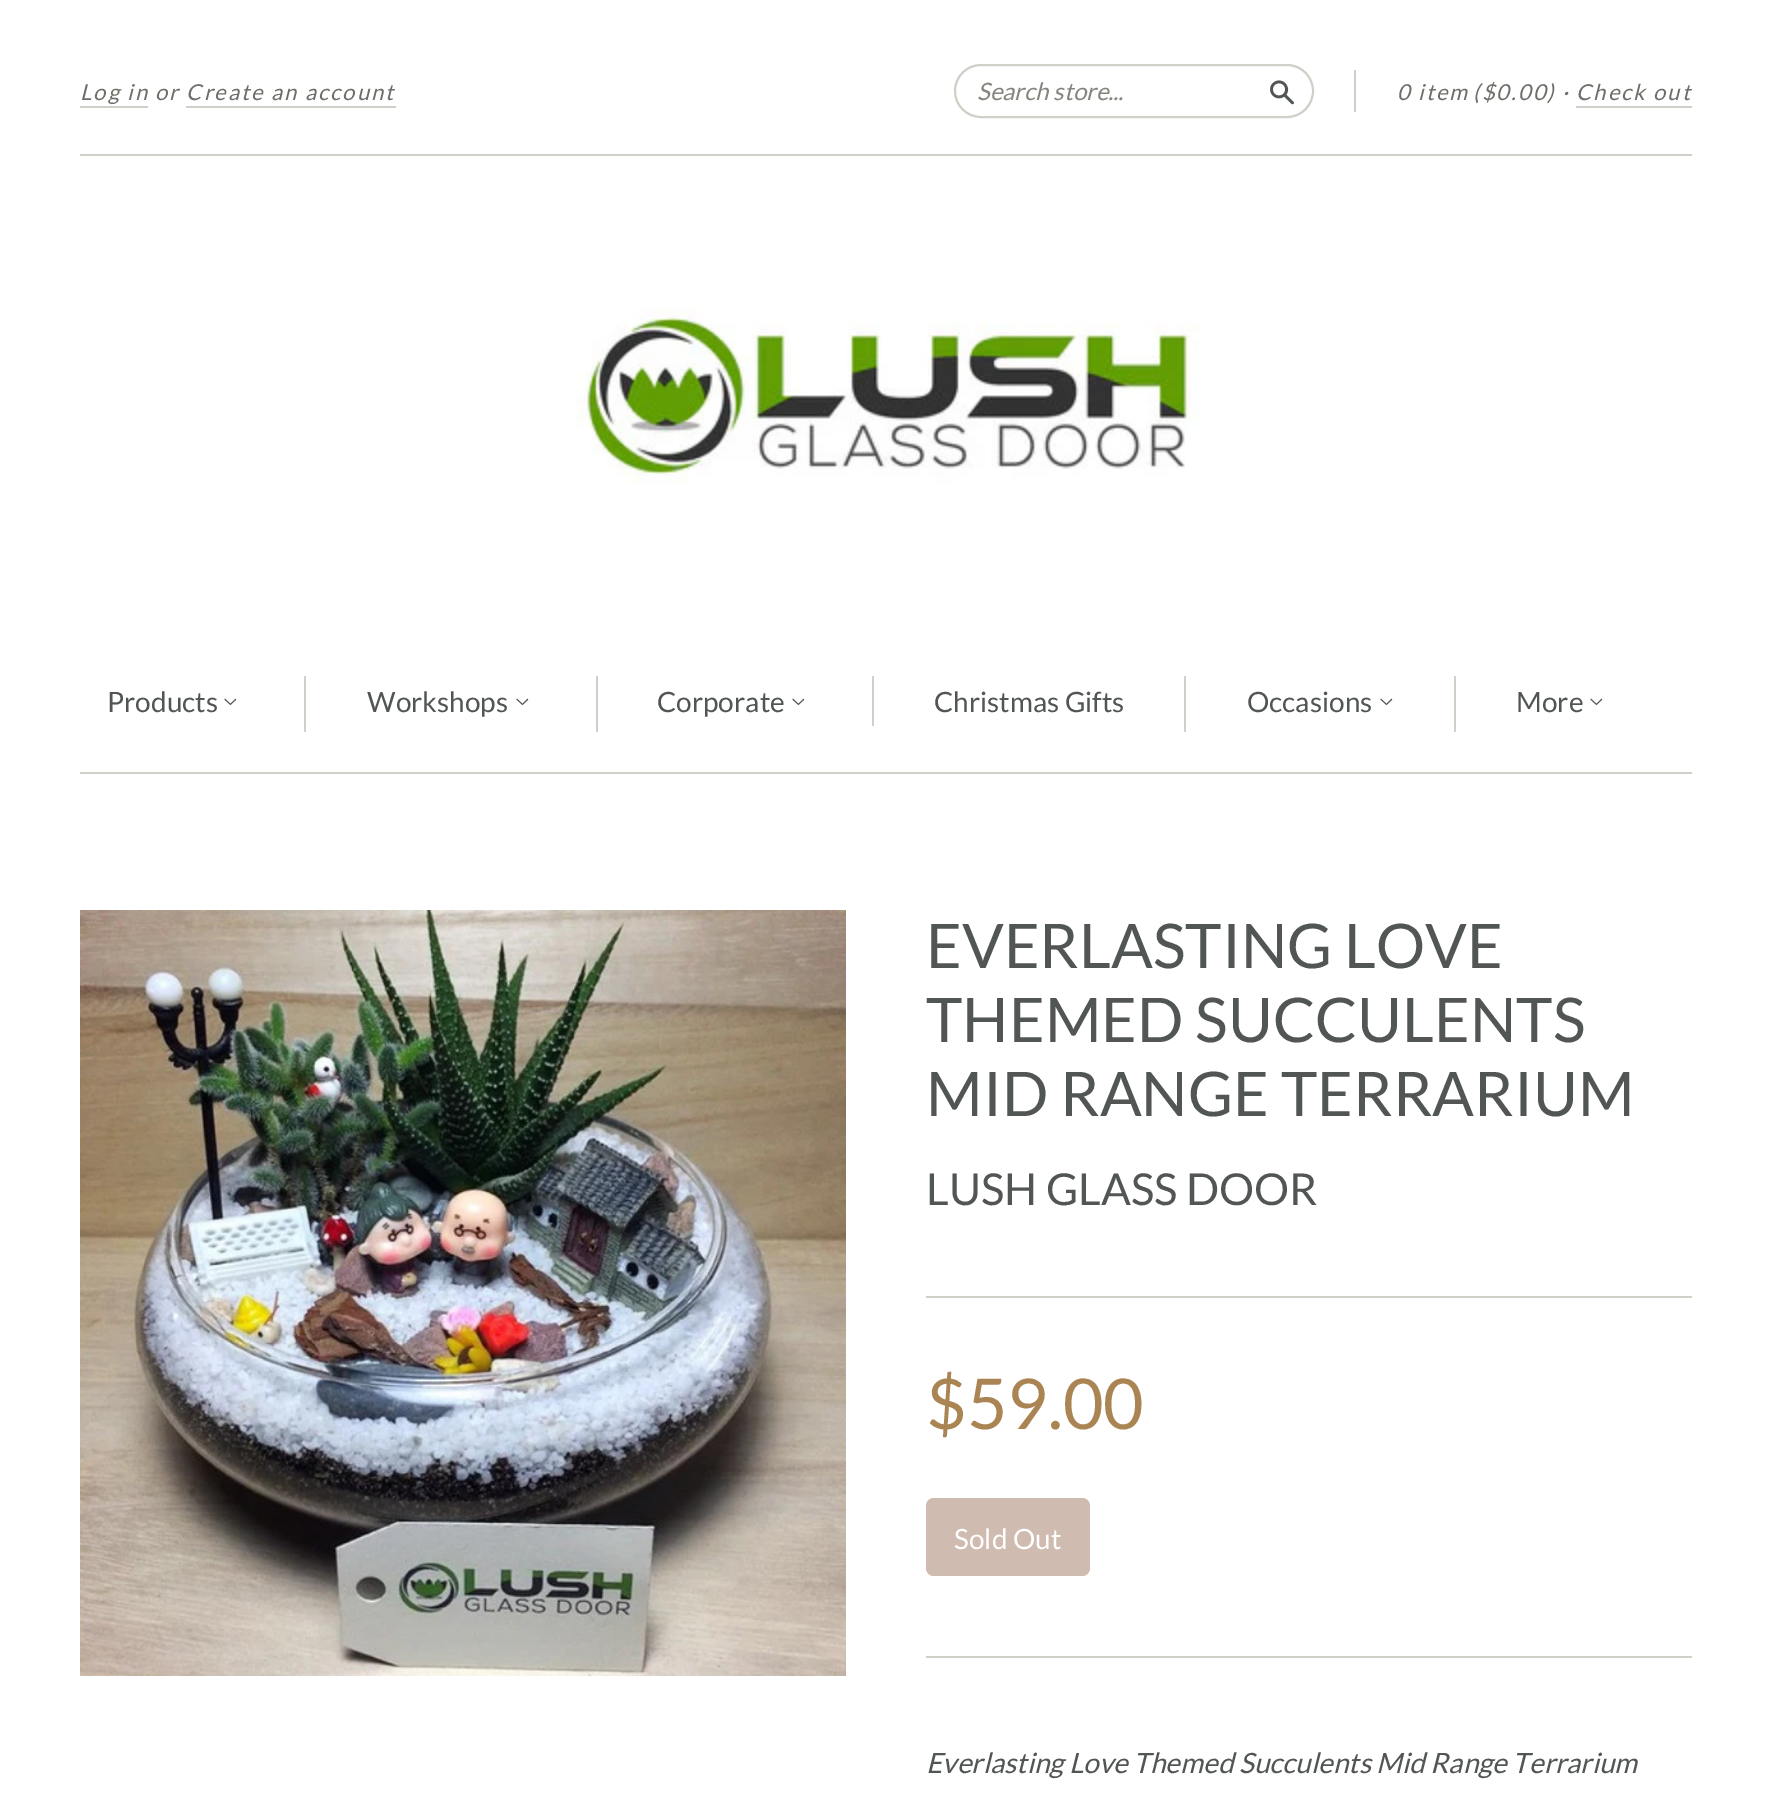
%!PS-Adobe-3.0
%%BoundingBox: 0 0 1771 1800
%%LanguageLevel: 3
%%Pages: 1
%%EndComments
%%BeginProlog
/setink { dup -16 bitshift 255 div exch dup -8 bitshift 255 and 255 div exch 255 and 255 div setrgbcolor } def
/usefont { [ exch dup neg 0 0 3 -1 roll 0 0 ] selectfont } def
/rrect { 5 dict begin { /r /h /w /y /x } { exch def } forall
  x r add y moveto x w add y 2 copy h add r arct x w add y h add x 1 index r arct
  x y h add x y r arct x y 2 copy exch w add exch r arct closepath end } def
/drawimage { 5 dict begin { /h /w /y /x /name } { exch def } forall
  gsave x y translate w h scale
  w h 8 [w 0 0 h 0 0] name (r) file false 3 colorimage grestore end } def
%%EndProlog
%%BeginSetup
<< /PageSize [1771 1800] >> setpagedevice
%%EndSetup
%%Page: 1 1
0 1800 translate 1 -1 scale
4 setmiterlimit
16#FFFFFF setink
0 0 1771 1800 rectfill
16#CFD0C8 setink
80 772 1612 2 rectfill
80 154 1612 2 rectfill
/Lato-Italic 22 usefont
16#6D6E68 setink
80 100 moveto 2 0 (Log in or Create an account) ashow
16#CFD0C8 setink
80 106 68 2 rectfill
186 106 210 2 rectfill
2 setlinewidth
955 65 358 52 26 rrect stroke
/Lato-Italic 24 usefont
16#84857D setink
977 100 moveto (Search store...) show
(img1.raw) 1270 80 24 25 drawimage
16#CFD0C8 setink
1354 70 2 42 rectfill
/Lato-Italic 22 usefont
16#6D6E68 setink
1397 100 moveto 2 0 (0 item) ashow
1473 100 moveto 2 0 (\($0.00\) · Check out) ashow
16#CFD0C8 setink
1576 106 116 2 rectfill
(img2.raw) 576 308 624 176 drawimage
/Lato-Regular 28 usefont
16#515554 setink
107 712 moveto (Products) show
(img3.raw) 224 698 13 8 drawimage
16#CFD0C8 setink
304 676 2 56 rectfill
16#515554 setink
367 712 moveto (Workshops) show
(img3.raw) 516 698 13 8 drawimage
16#CFD0C8 setink
596 676 2 56 rectfill
16#515554 setink
657 712 moveto (Corporate) show
(img3.raw) 792 698 13 8 drawimage
16#CFD0C8 setink
872 676 2 50 rectfill
16#515554 setink
934 712 moveto (Christmas Gifts) show
16#CFD0C8 setink
1184 676 2 56 rectfill
16#515554 setink
1247 712 moveto (Occasions) show
(img3.raw) 1380 698 13 8 drawimage
16#CFD0C8 setink
1454 676 2 56 rectfill
16#515554 setink
1516 712 moveto (More) show
(img3.raw) 1590 698 13 8 drawimage
(img4.raw) 80 910 766 766 drawimage
/Lato-Regular 61.6 usefont
[
    [(EVERLASTING LOVE) 926 968]
    [(THEMED SUCCULENTS) 926 1042]
    [(MID RANGE TERRARIUM) 926 1116]
] { aload pop moveto show } forall
/Lato-Regular 44 usefont
926 1205 moveto (LUSH GLASS DOOR) show
16#CFD0C8 setink
926 1296 766 2 rectfill
/Lato-Regular 70 usefont
16#AA8553 setink
926 1429 moveto ($59.00) show
16#CFBBAF setink
926 1498 164 78 8 rrect fill
/Lato-Regular 28 usefont
16#FFFFFF setink
954 1549 moveto (Sold Out) show
16#CFD0C8 setink
926 1656 766 2 rectfill
/Lato-Italic 28 usefont
16#515554 setink
926 1773 moveto (Everlasting Love Themed Succulents Mid Range Terrarium) show
showpage
%%EOF
